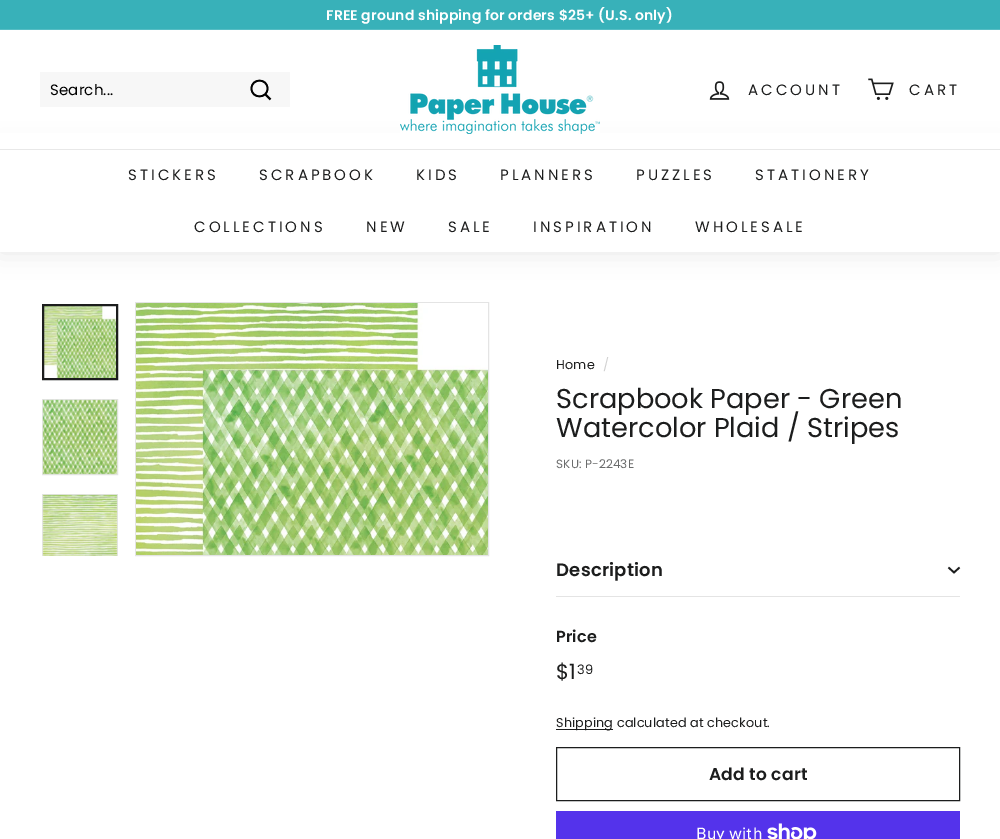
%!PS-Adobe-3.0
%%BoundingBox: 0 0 1000 839
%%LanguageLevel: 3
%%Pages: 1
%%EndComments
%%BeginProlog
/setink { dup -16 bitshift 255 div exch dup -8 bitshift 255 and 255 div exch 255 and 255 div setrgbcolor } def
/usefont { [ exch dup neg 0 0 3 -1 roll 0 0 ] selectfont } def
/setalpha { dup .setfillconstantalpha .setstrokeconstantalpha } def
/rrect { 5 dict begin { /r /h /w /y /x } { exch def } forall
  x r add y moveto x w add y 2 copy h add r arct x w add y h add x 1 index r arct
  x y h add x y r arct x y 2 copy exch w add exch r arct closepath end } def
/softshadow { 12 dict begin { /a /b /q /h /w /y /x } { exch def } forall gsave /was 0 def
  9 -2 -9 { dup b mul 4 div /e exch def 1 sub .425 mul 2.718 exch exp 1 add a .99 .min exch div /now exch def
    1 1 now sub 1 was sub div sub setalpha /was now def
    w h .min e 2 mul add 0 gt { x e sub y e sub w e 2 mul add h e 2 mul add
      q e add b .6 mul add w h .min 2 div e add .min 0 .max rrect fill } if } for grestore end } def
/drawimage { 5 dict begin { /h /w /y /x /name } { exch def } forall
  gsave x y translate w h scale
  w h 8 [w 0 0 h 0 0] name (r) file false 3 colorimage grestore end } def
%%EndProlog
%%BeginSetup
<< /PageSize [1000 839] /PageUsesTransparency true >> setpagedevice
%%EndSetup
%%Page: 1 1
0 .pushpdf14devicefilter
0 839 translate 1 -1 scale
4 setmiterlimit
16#FFFFFF setink
0 0 1000 839 rectfill
16#38B1B9 setink
0 0 1000 29 rectfill
/Poppins-SemiBold 14 usefont
16#FFFFFF setink
326 20 moveto 0.15 0 (FREE ground shipping for orders $25+ \(U.S. only\)) ashow
16#56BDC4 setink
0 29 1000 1 rectfill
16#000000 setink
0 149 1000 103 0 12.5 0.1 softshadow
16#FFFFFF setink
0 133 1000 16 rectfill
16#F7F7F7 setink
40 72 250 35 rectfill
/Poppins-Regular 15 usefont
16#000000 setink
50 95 moveto 0.15 0 (Search...) ashow
1.8 setlinewidth
267.5 88.5 moveto 267.5 99 251.5 99 251.5 88.5 curveto 251.5 78 267.5 78 267.5 88.5 curveto closepath 270.5 99.5 moveto 265.5 94.5 lineto stroke
(img1.raw) 400 45 200 89 drawimage
(img2.raw) 709 81 21 19 drawimage
16#1C1D1D setink
748 95 moveto 3 0 (ACCOUNT) ashow
(img3.raw) 868 78 26 22 drawimage
909 95 moveto 3 0 (CART) ashow
16#FFFFFF setink
0 150 1000 102 rectfill
16#E8E8E8 setink
0 149 1000 1 rectfill
16#1C1D1D setink
128 180 moveto 3 0 (STICKERS) ashow
259 180 moveto 3 0 (SCRAPBOOK) ashow
416 180 moveto 3 0 (KIDS) ashow
500 180 moveto 3 0 (PLANNERS) ashow
636 180 moveto 3 0 (PUZZLES) ashow
755 180 moveto 3 0 (STATIONERY) ashow
194 232 moveto 3 0 (COLLECTIONS) ashow
366 232 moveto 3 0 (NEW) ashow
448 232 moveto 3 0 (SALE) ashow
533 232 moveto 3 0 (INSPIRATION) ashow
695 232 moveto 3 0 (WHOLESALE) ashow
(img4.raw) 44 306 72 72 drawimage
2 setlinewidth
43 305 74 74 rectstroke
16#E4E4E4 setink
1 setlinewidth
42.5 399.5 75 75 rectstroke
(img5.raw) 42 399 76 76 drawimage
gsave
42 494 76 62 rectclip
42.5 494.5 75 75 rectstroke
grestore
(img6.raw) 42 494 76 62 drawimage
135.5 302.5 353 253 rectstroke
(img7.raw) 136 303 352 252 drawimage
/Poppins-Regular 12.75 usefont
16#1C1D1D setink
556 369 moveto 0.15 0 (Home) ashow
16#D2D2D2 setink
603 369 moveto 0.15 0 (/) ashow
/Poppins-Regular 27.25 usefont
16#1C1D1D setink
556 408 moveto (Scrapbook Paper - Green) show
556 437 moveto (Watercolor Plaid / Stripes) show
/Poppins-Regular 12 usefont
16#6B6C6C setink
556 468 moveto 0.15 0 (SKU: P-2243E) ashow
16#E4E4E4 setink
556 596 404 1 rectfill
/Poppins-SemiBold 18 usefont
16#1C1D1D setink
556 576 moveto 0.25 0 (Description) ashow
1.7 setlinewidth
948.5 567.5 moveto 954 572.5 lineto 959.5 567.5 lineto stroke
/Poppins-SemiBold 16 usefont
556 642 moveto 0.15 0 (Price) ashow
/Poppins-Regular 21 usefont
556 679 moveto 0.15 0 ($1) ashow
/Poppins-Regular 13 usefont
577 674 moveto 0.15 0 (39) ashow
556 729 57 1 rectfill
/Poppins-Regular 12.75 usefont
556 727 moveto 0.15 0 (Shipping calculated at checkout.) ashow
1 setlinewidth
556.5 747.5 403 53 rectstroke
/Poppins-SemiBold 17 usefont
709 780 moveto 0.25 0 (Add to cart) ashow
16#5433EB setink
556 811 404 28 rectfill
/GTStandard-Regular 16 usefont
16#FFFFFF setink
696 839 moveto 0.15 0 (Buy with) ashow
(img8.raw) 767 823 50 16 drawimage
.poppdf14devicefilter showpage
%%EOF
